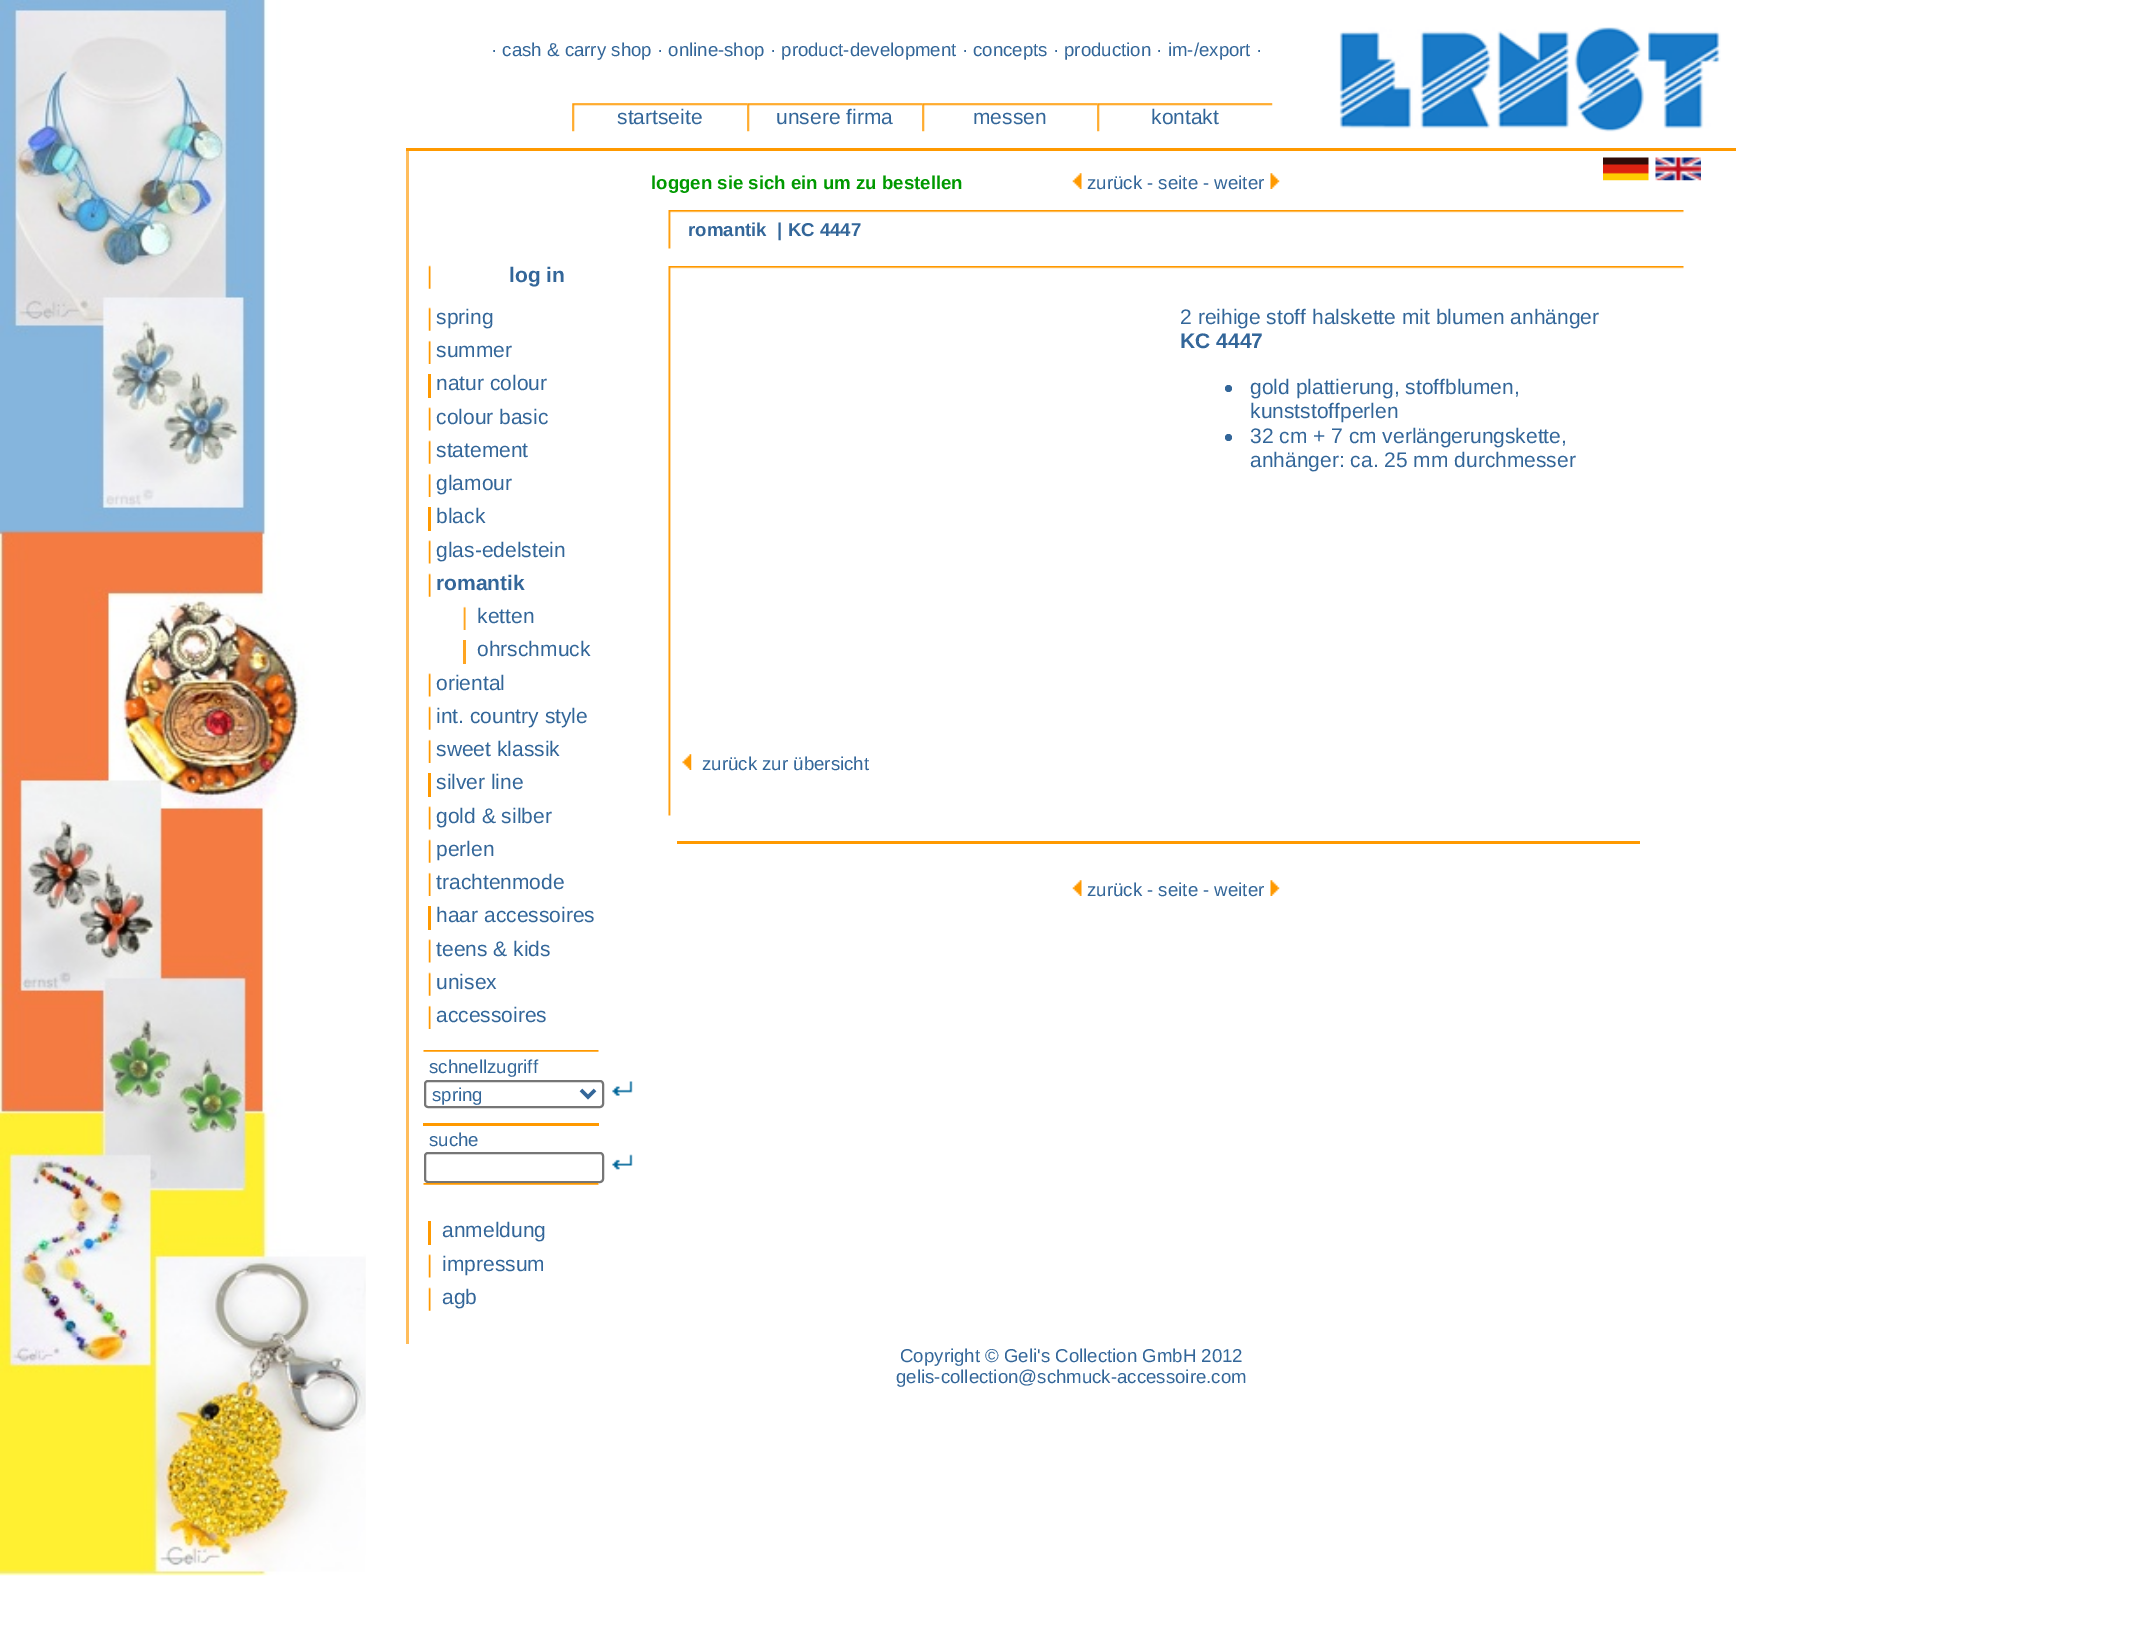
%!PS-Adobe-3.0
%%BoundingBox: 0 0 2142 1630
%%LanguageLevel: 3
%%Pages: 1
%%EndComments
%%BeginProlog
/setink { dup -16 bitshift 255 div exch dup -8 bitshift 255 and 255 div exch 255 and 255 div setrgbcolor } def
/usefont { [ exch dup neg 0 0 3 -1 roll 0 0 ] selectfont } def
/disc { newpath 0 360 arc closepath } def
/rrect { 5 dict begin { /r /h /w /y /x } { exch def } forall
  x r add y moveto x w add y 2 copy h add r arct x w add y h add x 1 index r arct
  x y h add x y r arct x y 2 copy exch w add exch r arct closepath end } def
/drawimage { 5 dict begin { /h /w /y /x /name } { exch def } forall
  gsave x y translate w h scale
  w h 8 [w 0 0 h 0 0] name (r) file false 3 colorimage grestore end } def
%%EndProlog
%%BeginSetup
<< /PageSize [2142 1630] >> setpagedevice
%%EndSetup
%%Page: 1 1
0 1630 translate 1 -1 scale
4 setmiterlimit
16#FFFFFF setink
0 0 2142 1630 rectfill
(img1.raw) 0 0 366 1576 drawimage
/LiberationSans-Regular 18.65 usefont
16#336699 setink
491 56 moveto (· cash & carry shop · online-shop · product-development · concepts · production · im-/export ·) show
(img2.raw) 1339 27 382 105 drawimage
(img3.raw) 572 103 176 29 drawimage
/LiberationSans-Regular 21 usefont
617 124 moveto (startseite) show
(img4.raw) 747 103 176 29 drawimage
776 124 moveto (unsere firma) show
(img4.raw) 922 103 176 29 drawimage
973 124 moveto (messen) show
(img4.raw) 1097 103 176 29 drawimage
1151 124 moveto (kontakt) show
16#FFBD5C setink
406 150 3 1194 rectfill
16#FF9900 setink
406 148 1330 3 rectfill
(img5.raw) 428 265 3 24 drawimage
/LiberationSans-Bold 21 usefont
16#336699 setink
509 282 moveto (log in) show
(img5.raw) 428 307 3 24 drawimage
/LiberationSans-Regular 21 usefont
436 324 moveto (spring) show
(img6.raw) 428 340 3 24 drawimage
436 357 moveto (summer) show
16#FF9900 setink
428 374 3 24 rectfill
16#336699 setink
436 390 moveto (natur colour) show
(img7.raw) 428 407 3 24 drawimage
436 424 moveto (colour basic) show
(img5.raw) 428 440 3 24 drawimage
436 457 moveto (statement) show
(img6.raw) 428 473 3 24 drawimage
436 490 moveto (glamour) show
16#FF9900 setink
428 507 3 24 rectfill
16#336699 setink
436 523 moveto (black) show
(img7.raw) 428 540 3 24 drawimage
436 557 moveto (glas-edelstein) show
(img5.raw) 428 573 3 24 drawimage
/LiberationSans-Bold 21 usefont
436 590 moveto (romantik) show
(img8.raw) 463 606 3 24 drawimage
/LiberationSans-Regular 21 usefont
477 623 moveto (ketten) show
16#FFA521 setink
463 640 3 24 rectfill
16#336699 setink
477 656 moveto (ohrschmuck) show
(img7.raw) 428 673 3 24 drawimage
436 690 moveto (oriental) show
(img5.raw) 428 706 3 24 drawimage
436 723 moveto (int. country style) show
(img6.raw) 428 739 3 24 drawimage
436 756 moveto (sweet klassik) show
16#FF9900 setink
428 773 3 24 rectfill
16#336699 setink
436 789 moveto (silver line) show
(img7.raw) 428 806 3 24 drawimage
436 823 moveto (gold & silber) show
(img5.raw) 428 839 3 24 drawimage
436 856 moveto (perlen) show
(img6.raw) 428 872 3 24 drawimage
436 889 moveto (trachtenmode) show
16#FF9900 setink
428 906 3 24 rectfill
16#336699 setink
436 922 moveto (haar accessoires) show
(img7.raw) 428 939 3 24 drawimage
436 956 moveto (teens & kids) show
(img5.raw) 428 972 3 24 drawimage
436 989 moveto (unisex) show
(img6.raw) 428 1005 3 24 drawimage
436 1022 moveto (accessoires) show
(img9.raw) 423 1050 176 2 drawimage
/LiberationSans-Regular 18.65 usefont
429 1073 moveto (schnellzugriff) show
16#767676 setink
2 setlinewidth
425 1081 178 26 3 rrect stroke
16#336699 setink
3.5 setlinewidth
581 1090 moveto 588 1097 lineto 595 1090 lineto stroke
432 1101 moveto (spring) show
(img10.raw) 612 1081 21 15 drawimage
16#FF9900 setink
423 1123 176 3 rectfill
16#336699 setink
429 1146 moveto (suche) show
16#767676 setink
2 setlinewidth
425 1153 178 29 3 rrect stroke
(img11.raw) 612 1154 21 16 drawimage
(img9.raw) 423 1183 176 2 drawimage
16#FF9900 setink
428 1221 3 24 rectfill
/LiberationSans-Regular 21 usefont
16#336699 setink
442 1237 moveto (anmeldung) show
(img7.raw) 428 1254 3 24 drawimage
442 1271 moveto (impressum) show
(img5.raw) 428 1287 3 24 drawimage
442 1304 moveto (agb) show
(img12.raw) 1603 157 46 24 drawimage
(img13.raw) 1655 157 46 24 drawimage
/LiberationSans-Bold 18.65 usefont
16#009900 setink
651 189 moveto (loggen sie sich ein um zu bestellen) show
(img14.raw) 1072 173 10 16 drawimage
/LiberationSans-Regular 18.65 usefont
16#336699 setink
1087 189 moveto (zurück - seite - weiter) show
(img15.raw) 1270 173 10 16 drawimage
(img16.raw) 668 210 1016 39 drawimage
/LiberationSans-Bold 18.65 usefont
688 236 moveto (romantik  | KC 4447) show
(img17.raw) 668 266 1016 550 drawimage
/LiberationSans-Regular 21 usefont
1180 324 moveto (2 reihige stoff halskette mit blumen anhänger) show
/LiberationSans-Bold 21 usefont
1180 348 moveto (KC 4447) show
1228.5 388.5 3.5 disc fill
/LiberationSans-Regular 21 usefont
1250 394 moveto (gold plattierung, stoffblumen,) show
1250 418 moveto (kunststoffperlen) show
1228.5 437.5 3.5 disc fill
1250 443 moveto (32 cm + 7 cm verlängerungskette,) show
1250 467 moveto (anhänger: ca. 25 mm durchmesser) show
(img18.raw) 682 754 10 16 drawimage
/LiberationSans-Regular 18.65 usefont
702 770 moveto (zurück zur übersicht) show
16#FF9900 setink
677 841 963 3 rectfill
(img14.raw) 1072 880 10 16 drawimage
16#336699 setink
1087 896 moveto (zurück - seite - weiter) show
(img15.raw) 1270 880 10 16 drawimage
900 1362 moveto (Copyright © Geli's Collection GmbH 2012) show
896 1383 moveto (gelis-collection@schmuck-accessoire.com) show
showpage
%%EOF
